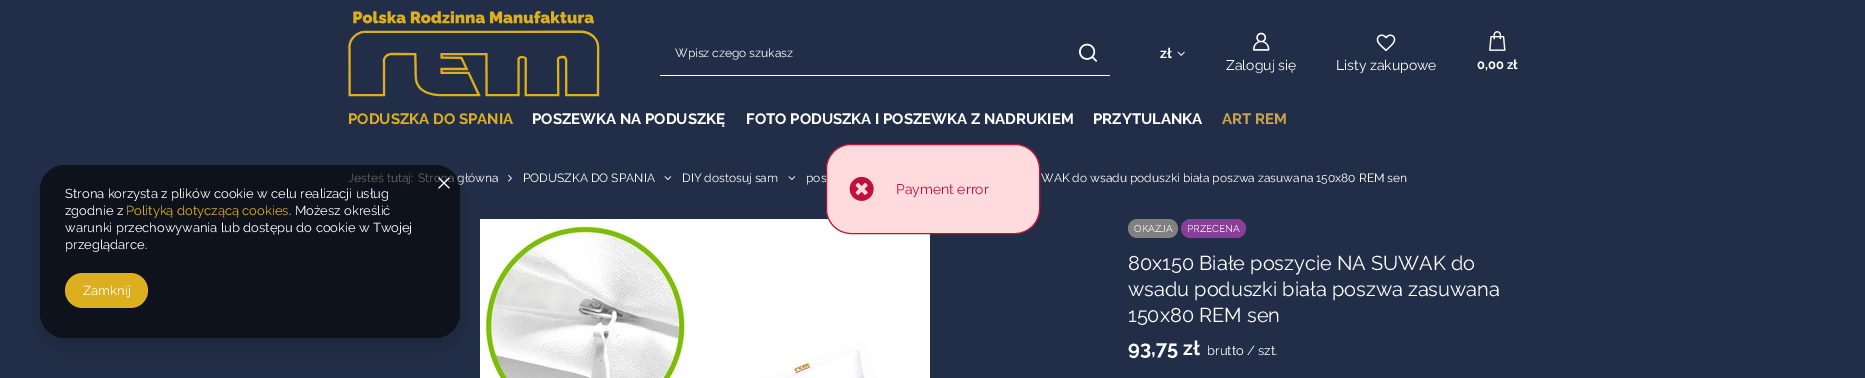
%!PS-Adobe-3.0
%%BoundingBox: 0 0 1865 378
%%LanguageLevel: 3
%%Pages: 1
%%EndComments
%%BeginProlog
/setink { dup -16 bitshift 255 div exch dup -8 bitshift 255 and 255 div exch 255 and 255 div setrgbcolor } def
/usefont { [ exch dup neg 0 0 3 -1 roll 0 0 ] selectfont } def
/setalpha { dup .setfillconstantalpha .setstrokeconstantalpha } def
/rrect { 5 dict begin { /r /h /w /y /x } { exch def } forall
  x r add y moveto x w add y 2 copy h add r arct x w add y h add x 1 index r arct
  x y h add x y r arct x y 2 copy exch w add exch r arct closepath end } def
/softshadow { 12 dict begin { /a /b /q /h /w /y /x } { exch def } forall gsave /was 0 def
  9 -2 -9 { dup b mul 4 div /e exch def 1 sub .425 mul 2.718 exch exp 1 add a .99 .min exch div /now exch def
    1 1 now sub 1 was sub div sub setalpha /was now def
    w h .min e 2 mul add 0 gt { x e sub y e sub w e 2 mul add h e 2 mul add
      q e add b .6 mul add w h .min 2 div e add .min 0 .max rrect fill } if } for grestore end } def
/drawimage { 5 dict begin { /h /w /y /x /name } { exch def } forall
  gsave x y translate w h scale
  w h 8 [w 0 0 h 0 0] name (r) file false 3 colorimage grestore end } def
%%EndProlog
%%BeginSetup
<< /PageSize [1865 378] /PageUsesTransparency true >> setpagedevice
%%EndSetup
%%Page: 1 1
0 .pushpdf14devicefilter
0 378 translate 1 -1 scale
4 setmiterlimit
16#222E48 setink
0 0 1865 378 rectfill
(img1.raw) 348 11 252 86 drawimage
16#FFFFFF setink
660 75 450 1 rectfill
/Raleway-Regular 12 usefont
675 57 moveto (Wpisz czego szukasz) show
(img2.raw) 1079 43 18 19 drawimage
/Raleway-Bold 14 usefont
1160 58 moveto (zł) show
(img3.raw) 1177 51 8 5 drawimage
(img4.raw) 1253 32 17 19 drawimage
/Raleway-Regular 14 usefont
1226 70 moveto (Zaloguj się) show
(img5.raw) 1376 34 20 18 drawimage
1336 70 moveto (Listy zakupowe) show
(img6.raw) 1489 31 17 20 drawimage
/Raleway-Bold 13 usefont
1477 69 moveto (0,00 zł) show
/Raleway-Bold 15 usefont
16#DCAF1E setink
348 124 moveto (PODUSZKA DO SPANIA) show
16#FFFFFF setink
[
    [(POSZEWKA NA PODUSZKĘ) 532 124]
    [(FOTO PODUSZKA I POSZEWKA Z NADRUKIEM) 746 124]
    [(PRZYTULANKA) 1093 124]
] { aload pop moveto show } forall
16#C9A250 setink
1222 124 moveto (ART REM) show
/Raleway-Regular 12 usefont
16#FFFFFF setink
348 182 moveto (Jesteś tutaj:) show
418 182 moveto (Strona główna) show
(img7.raw) 508 174 4 8 drawimage
523 182 moveto (PODUSZKA DO SPANIA) show
(img8.raw) 664 176 8 4 drawimage
682 182 moveto (DIY dostosuj sam) show
(img8.raw) 788 176 8 4 drawimage
806 182 moveto (pos) show
1041 182 moveto (WAK do wsadu poduszki biała poszwa zasuwana 150x80 REM sen) show
(img9.raw) 480 219 450 159 drawimage
16#808080 setink
1128 219 50 19 9.5 rrect fill
/Raleway-Regular 10 usefont
16#FFFFFF setink
1134 232 moveto (OKAZJA) show
16#893F97 setink
1181 219 65 19 9.5 rrect fill
16#FFFFFF setink
1187 232 moveto (PRZECENA) show
/Raleway-Regular 20 usefont
[
    [(80x150 Białe poszycie NA SUWAK do) 1128 270]
    [(wsadu poduszki biała poszwa zasuwana) 1128 296]
    [(150x80 REM sen) 1128 322]
] { aload pop moveto show } forall
/Raleway-Bold 20 usefont
1128 355 moveto (93,75 zł) show
/Raleway-Regular 13 usefont
1207 355 moveto (brutto / szt.) show
gsave
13 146 moveto 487 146 lineto 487 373 lineto 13 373 lineto closepath 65 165 moveto 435 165 lineto 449 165 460 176 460 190 curveto 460 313 lineto 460 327 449 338 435 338 curveto 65 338 lineto 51 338 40 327 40 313 curveto 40 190 lineto 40 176 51 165 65 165 curveto closepath eoclip newpath
16#000000 setink
37 170 426 179 28 7.5 0.15 softshadow
grestore
0.6 setalpha
16#000000 setink
40 165 420 173 25 rrect fill
1 setalpha
(img10.raw) 438 177 12 12 drawimage
16#FFFFFF setink
65 198 moveto (Strona korzysta z plików cookie w celu realizacji usług) show
65 215 moveto (zgodnie z) show
16#DCAF1E setink
126 215 moveto (Polityką dotyczącą cookies) show
16#FFFFFF setink
[
    [(. Możesz określić) 289 215]
    [(warunki przechowywania lub dostępu do cookie w Twojej) 65 232]
    [(przeglądarce.) 65 249]
] { aload pop moveto show } forall
16#DCAF1E setink
65 273 83 35 17.5 rrect fill
16#FFFFFF setink
83 295 moveto (Zamknij) show
16#FFDBDD setink
826.5 144.5 213 89 24.5 rrect gsave fill grestore
16#BE123C setink
stroke
(img11.raw) 849 176 25 25 drawimage
/Raleway-Regular 14 usefont
896 194 moveto (Payment error) show
.poppdf14devicefilter showpage
%%EOF
